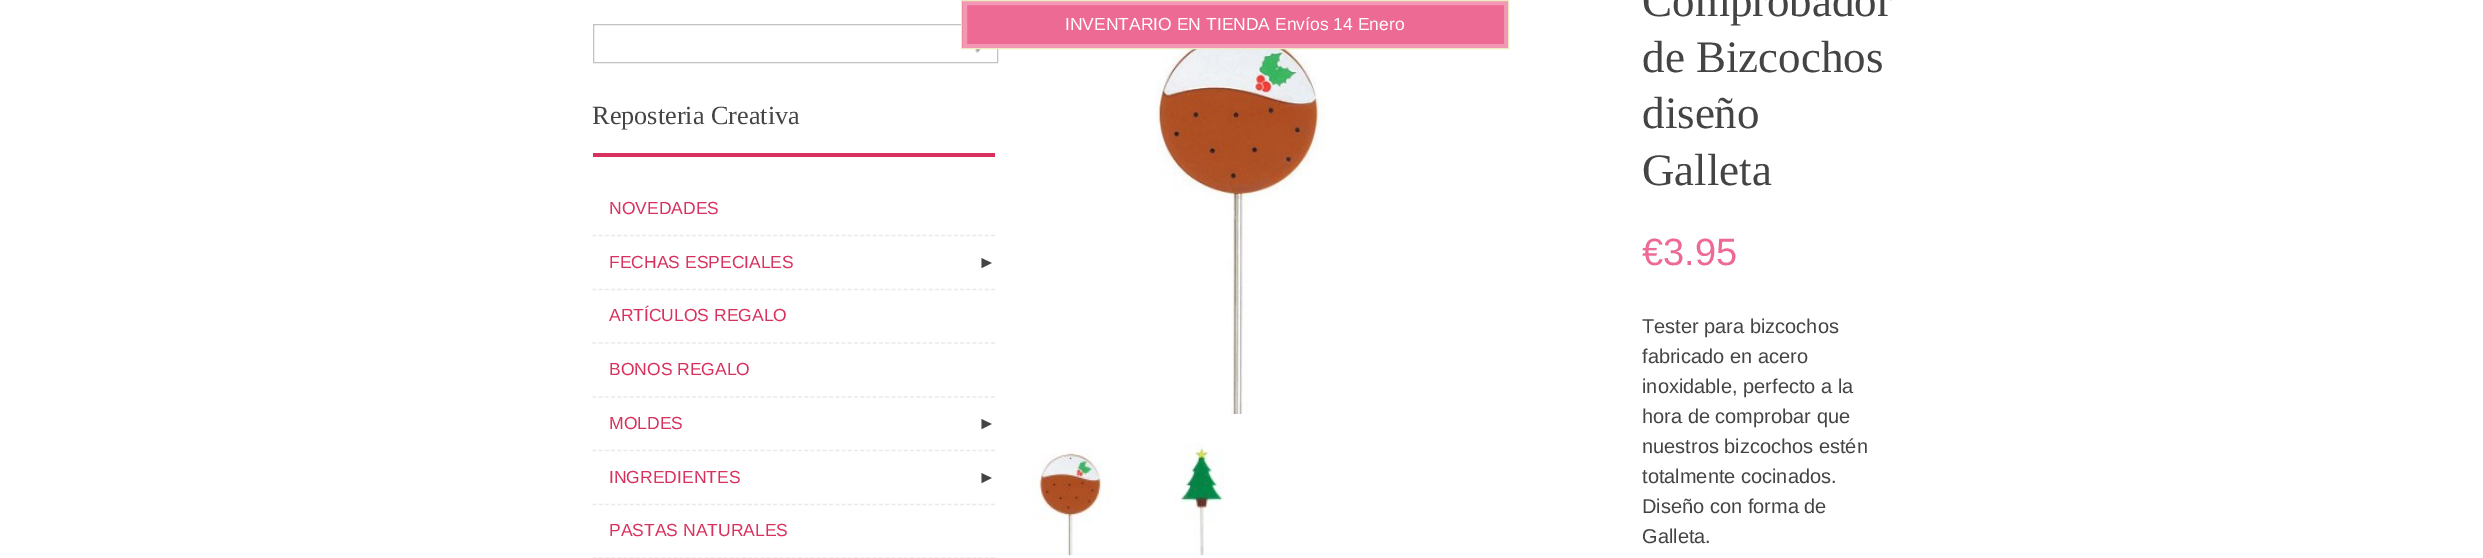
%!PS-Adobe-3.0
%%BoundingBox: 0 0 2483 558
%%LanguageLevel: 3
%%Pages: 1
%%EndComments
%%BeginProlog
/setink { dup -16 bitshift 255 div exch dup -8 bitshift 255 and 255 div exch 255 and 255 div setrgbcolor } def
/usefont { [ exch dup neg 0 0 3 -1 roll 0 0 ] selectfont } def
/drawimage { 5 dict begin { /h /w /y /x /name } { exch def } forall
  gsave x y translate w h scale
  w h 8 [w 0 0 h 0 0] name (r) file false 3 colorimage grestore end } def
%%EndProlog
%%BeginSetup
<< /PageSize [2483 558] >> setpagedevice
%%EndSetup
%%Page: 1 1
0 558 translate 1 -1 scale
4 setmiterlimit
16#FFFFFF setink
0 0 2483 558 rectfill
16#C2C2C2 setink
593.5 24.5 404 38 rectstroke
(img1.raw) 975 49 7 4 drawimage
16#D8315E setink
593 153 402 4 rectfill
/LiberationSerif-Regular 26.25 usefont
16#444444 setink
592 124 moveto (Reposteria Creativa) show
16#EAEAEA setink
1.2 setlinewidth
[3.75 2.48] 0 setdash
592.5 235.5 moveto 995 235.5 lineto stroke
/LiberationSans-Regular 17.5 usefont
16#D8315E setink
609 214 moveto (NOVEDADES) show
16#EAEAEA setink
592.5 289.5 moveto 995 289.5 lineto stroke
16#D8315E setink
609 268 moveto (FECHAS ESPECIALES) show
16#444444 setink
978 268 moveto (►) show
16#EAEAEA setink
592.5 343 moveto 995 343 lineto stroke
16#D8315E setink
609 321 moveto (ARTÍCULOS REGALO) show
16#EAEAEA setink
592.5 397 moveto 995 397 lineto stroke
16#D8315E setink
609 375 moveto (BONOS REGALO) show
16#EAEAEA setink
592.5 450.5 moveto 995 450.5 lineto stroke
16#D8315E setink
609 429 moveto (MOLDES) show
16#444444 setink
978 429 moveto (►) show
16#EAEAEA setink
592.5 504.5 moveto 995 504.5 lineto stroke
16#D8315E setink
609 483 moveto (INGREDIENTES) show
16#444444 setink
978 483 moveto (►) show
16#EAEAEA setink
592.5 558 moveto 995 558 lineto stroke
16#D8315E setink
609 536 moveto (PASTAS NATURALES) show
(img2.raw) 1156 49 170 365 drawimage
(img3.raw) 1031 448 80 108 drawimage
(img4.raw) 1174 443 50 113 drawimage
/LiberationSerif-Regular 45 usefont
16#444444 setink
[
    [(Comprobador) 1642 16]
    [(de Bizcochos) 1642 72]
    [(diseño) 1642 128]
    [(Galleta) 1642 185]
] { aload pop moveto show } forall
/LiberationSans-Regular 38 usefont
16#EC6A94 setink
1642 265 moveto (€3.95) show
/LiberationSans-Regular 20 usefont
16#444444 setink
[
    [(Tester para bizcochos) 1642 333]
    [(fabricado en acero) 1642 363]
    [(inoxidable, perfecto a la) 1642 393]
    [(hora de comprobar que) 1642 423]
    [(nuestros bizcochos estén) 1642 453]
    [(totalmente cocinados.) 1642 483]
    [(Diseño con forma de) 1642 513]
    [(Galleta.) 1642 543]
] { aload pop moveto show } forall
16#EC6A94 setink
962 1 542 47 rectfill
16#F297B4 setink
4 setlinewidth
[] 0 setdash
965 3 541 43 rectstroke
16#EEEAC1 setink
1 setlinewidth
961.5 0.5 547 48 rectstroke
/LiberationSans-Regular 17.5 usefont
16#FFFFFF setink
1065 30 moveto (INVENTARIO EN TIENDA Envíos 14 Enero) show
showpage
%%EOF
